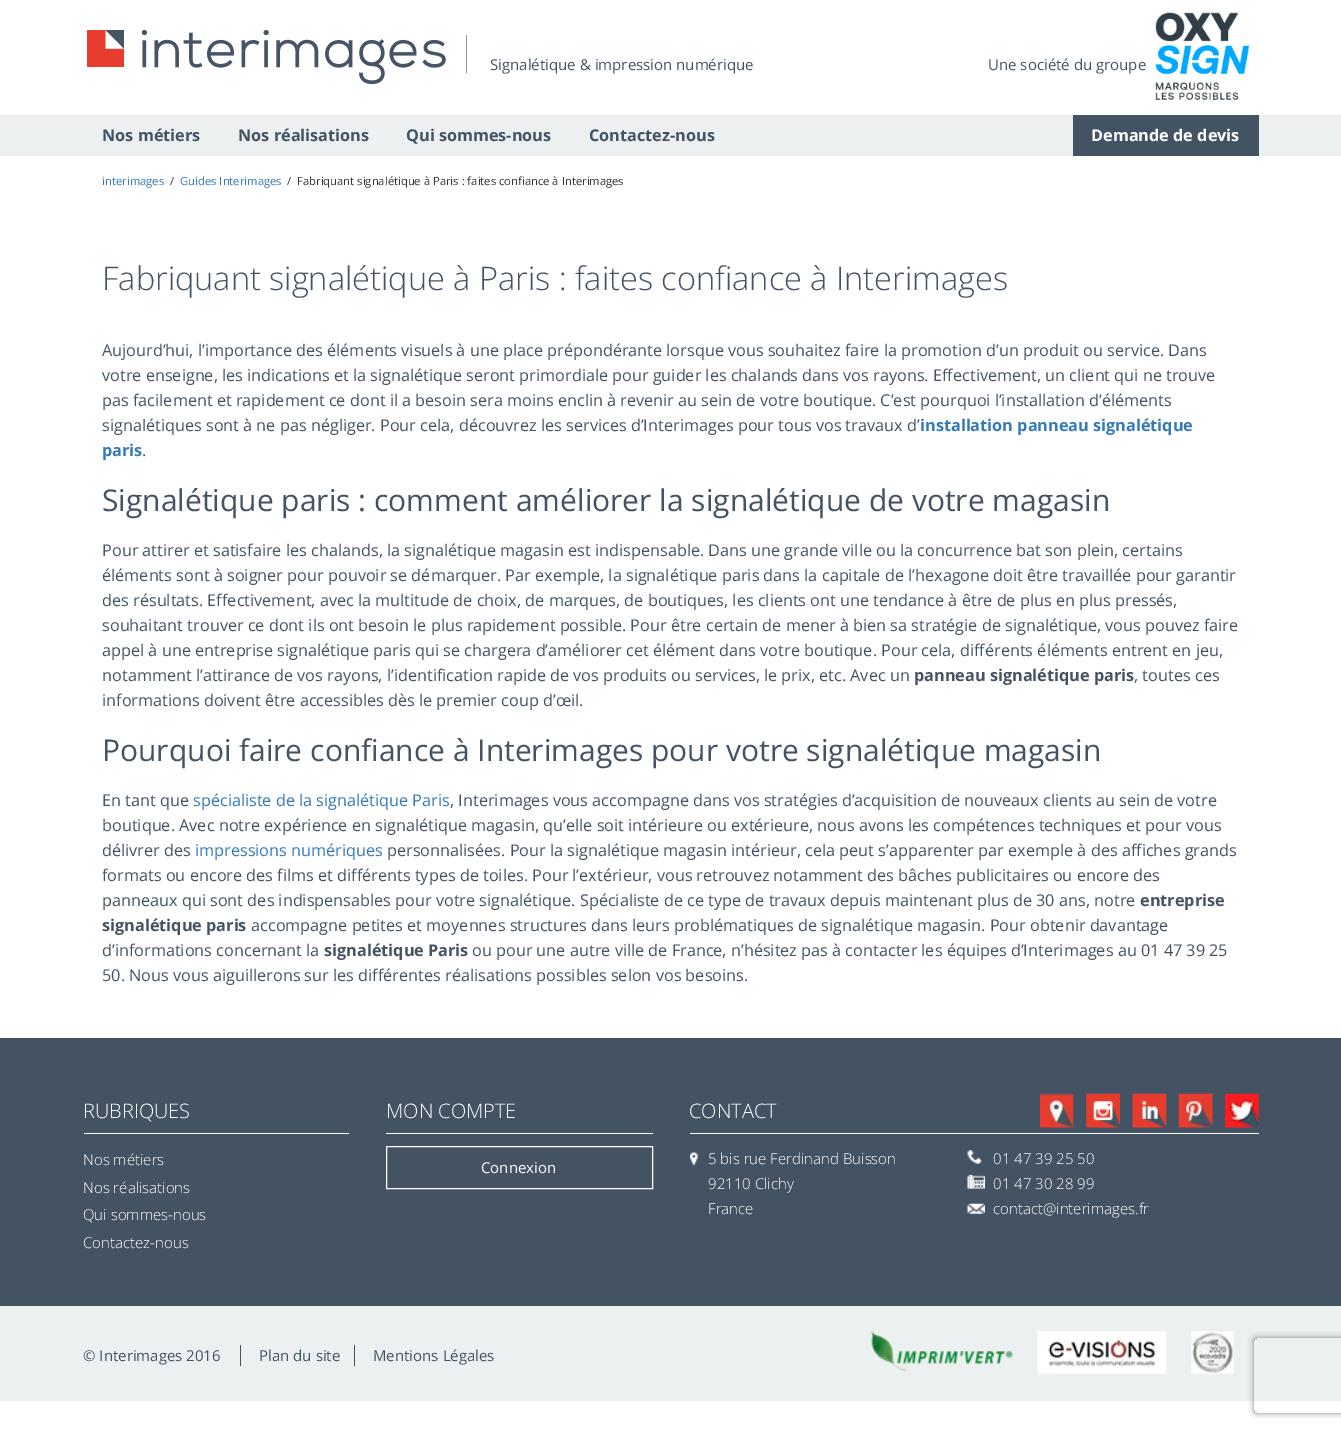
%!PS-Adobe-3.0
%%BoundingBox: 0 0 1341 1430
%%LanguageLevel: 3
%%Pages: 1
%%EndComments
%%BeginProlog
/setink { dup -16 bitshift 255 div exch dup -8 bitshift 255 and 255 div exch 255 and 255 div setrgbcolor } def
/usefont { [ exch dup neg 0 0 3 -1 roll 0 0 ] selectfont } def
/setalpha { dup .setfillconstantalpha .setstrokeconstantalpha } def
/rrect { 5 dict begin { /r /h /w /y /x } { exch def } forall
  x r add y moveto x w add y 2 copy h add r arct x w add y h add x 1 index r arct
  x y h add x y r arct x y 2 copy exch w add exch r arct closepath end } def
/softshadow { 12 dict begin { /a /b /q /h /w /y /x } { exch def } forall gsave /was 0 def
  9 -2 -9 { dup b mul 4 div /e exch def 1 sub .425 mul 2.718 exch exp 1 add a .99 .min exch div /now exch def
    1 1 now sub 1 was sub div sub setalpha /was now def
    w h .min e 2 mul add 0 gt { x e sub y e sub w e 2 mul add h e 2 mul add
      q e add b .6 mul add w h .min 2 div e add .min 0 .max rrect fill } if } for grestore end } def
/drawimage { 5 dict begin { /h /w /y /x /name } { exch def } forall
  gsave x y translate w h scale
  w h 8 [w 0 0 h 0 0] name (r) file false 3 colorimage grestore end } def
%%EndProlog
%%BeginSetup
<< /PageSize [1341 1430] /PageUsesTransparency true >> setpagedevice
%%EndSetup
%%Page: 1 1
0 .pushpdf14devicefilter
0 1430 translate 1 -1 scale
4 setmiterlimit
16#FFFFFF setink
0 0 1341 1430 rectfill
(img1.raw) 87 29 359 56 drawimage
16#979797 setink
466 35 1 38 rectfill
/OpenSans-Regular 15 usefont
16#445364 setink
490 70 moveto (Signalétique & impression numérique) show
988 70 moveto (Une société du groupe) show
(img2.raw) 1155 12 95 88 drawimage
16#ECF0F1 setink
0 115 1341 41 rectfill
/OpenSans-Bold 16.25 usefont
16#445364 setink
[
    [(Nos métiers) 102 141]
    [(Nos réalisations) 238 141]
    [(Qui sommes-nous) 406 141]
    [(Contactez-nous) 589 141]
] { aload pop moveto show } forall
1073 115 186 41 rectfill
16#FFFFFF setink
1091 141 moveto (Demande de devis) show
/OpenSans-Regular 11.25 usefont
16#337AB7 setink
102 185 moveto (interimages) show
16#333333 setink
170 185 moveto (/) show
16#337AB7 setink
180 185 moveto (Guides Interimages) show
16#333333 setink
287 185 moveto (/) show
297 185 moveto (Fabriquant signalétique à Paris : faites confiance à Interimages) show
/OpenSans-Light 32.5 usefont
16#445364 setink
102 290 moveto (Fabriquant signalétique à Paris : faites confiance à Interimages) show
/OpenSans-Regular 16.25 usefont
[
    [(Aujourd’hui, l’importance des éléments visuels à une place prépondérante lorsque vous souhaitez faire la promotion d’un produit ou service. Dans) 102 356]
    [(votre enseigne, les indications et la signalétique seront primordiale pour guider les chalands dans vos rayons. Effectivement, un client qui ne trouve) 102 381]
    [(pas facilement et rapidement ce dont il a besoin sera moins enclin à revenir au sein de votre boutique. C’est pourquoi l’installation d’éléments) 102 406]
    [(signalétiques sont à ne pas négliger. Pour cela, découvrez les services d’Interimages pour tous vos travaux d’) 102 431]
] { aload pop moveto show } forall
/OpenSans-Bold 16.25 usefont
16#337AB7 setink
920 431 moveto (installation panneau signalétique) show
102 456 moveto (paris) show
/OpenSans-Regular 16.25 usefont
16#445364 setink
142 456 moveto (.) show
/OpenSans-Regular 30 usefont
102 511 moveto (Signalétique paris : comment améliorer la signalétique de votre magasin) show
/OpenSans-Regular 16.25 usefont
[
    [(Pour attirer et satisfaire les chalands, la signalétique magasin est indispensable. Dans une grande ville ou la concurrence bat son plein, certains) 102 556]
    [(éléments sont à soigner pour pouvoir se démarquer. Par exemple, la signalétique paris dans la capitale de l’hexagone doit être travaillée pour garantir) 102 581]
    [(des résultats. Effectivement, avec la multitude de choix, de marques, de boutiques, les clients ont une tendance à être de plus en plus pressés,) 102 606]
    [(souhaitant trouver ce dont ils ont besoin le plus rapidement possible. Pour être certain de mener à bien sa stratégie de signalétique, vous pouvez faire) 102 631]
    [(appel à une entreprise signalétique paris qui se chargera d’améliorer cet élément dans votre boutique. Pour cela, différents éléments entrent en jeu,) 102 656]
    [(notamment l’attirance de vos rayons, l’identification rapide de vos produits ou services, le prix, etc. Avec un) 102 681]
] { aload pop moveto show } forall
/OpenSans-Bold 16.25 usefont
914 681 moveto (panneau signalétique paris) show
/OpenSans-Regular 16.25 usefont
1134 681 moveto (, toutes ces) show
102 706 moveto (informations doivent être accessibles dès le premier coup d’œil.) show
/OpenSans-Regular 30 usefont
102 761 moveto (Pourquoi faire confiance à Interimages pour votre signalétique magasin) show
/OpenSans-Regular 16.25 usefont
102 806 moveto (En tant que) show
16#337AB7 setink
193 806 moveto (spécialiste de la signalétique Paris) show
16#445364 setink
[
    [(, Interimages vous accompagne dans vos stratégies d’acquisition de nouveaux clients au sein de votre) 450 806]
    [(boutique. Avec notre expérience en signalétique magasin, qu’elle soit intérieure ou extérieure, nous avons les compétences techniques et pour vous) 102 831]
    [(délivrer des) 102 856]
] { aload pop moveto show } forall
16#337AB7 setink
195 856 moveto (impressions numériques) show
16#445364 setink
[
    [(personnalisées. Pour la signalétique magasin intérieur, cela peut s’apparenter par exemple à des affiches grands) 387 856]
    [(formats ou encore des films et différents types de toiles. Pour l’extérieur, vous retrouvez notamment des bâches publicitaires ou encore des) 102 881]
    [(panneaux qui sont des indispensables pour votre signalétique. Spécialiste de ce type de travaux depuis maintenant plus de 30 ans, notre) 102 906]
] { aload pop moveto show } forall
/OpenSans-Bold 16.25 usefont
1140 906 moveto (entreprise) show
102 931 moveto (signalétique paris) show
/OpenSans-Regular 16.25 usefont
251 931 moveto (accompagne petites et moyennes structures dans leurs problématiques de signalétique magasin. Pour obtenir davantage) show
102 956 moveto (d’informations concernant la) show
/OpenSans-Bold 16.25 usefont
324 956 moveto (signalétique Paris) show
/OpenSans-Regular 16.25 usefont
472 956 moveto (ou pour une autre ville de France, n’hésitez pas à contacter les équipes d’Interimages au 01 47 39 25) show
102 981 moveto (50. Nous vous aiguillerons sur les différentes réalisations possibles selon vos besoins.) show
0 1038 1341 268 rectfill
16#FFFFFF setink
84 1133 265 1 rectfill
/OpenSans-Light 20 usefont
83 1118 moveto (RUBRIQUES) show
/OpenSans-Light 15 usefont
[
    [(Nos métiers) 83 1165]
    [(Nos réalisations) 83 1193]
    [(Qui sommes-nous) 83 1220]
    [(Contactez-nous) 83 1248]
] { aload pop moveto show } forall
386 1133 267 1 rectfill
/OpenSans-Light 20 usefont
386 1118 moveto (MON COMPTE) show
386.5 1146.5 266 42 rectstroke
/OpenSans-Regular 15 usefont
481 1173 moveto (Connexion) show
690 1133 569 1 rectfill
/OpenSans-Light 20 usefont
689 1118 moveto (CONTACT) show
(img3.raw) 1040 1093 34 35 drawimage
(img4.raw) 1086 1093 34 35 drawimage
(img5.raw) 1132 1093 35 35 drawimage
(img6.raw) 1178 1093 35 35 drawimage
(img7.raw) 1225 1093 34 35 drawimage
(img8.raw) 690 1152 9 14 drawimage
/OpenSans-Light 15 usefont
[
    [(5 bis rue Ferdinand Buisson) 708 1164]
    [(92110 Clichy) 708 1189]
    [(France) 708 1214]
] { aload pop moveto show } forall
(img9.raw) 967 1150 15 14 drawimage
993 1164 moveto (01 47 39 25 50) show
(img10.raw) 967 1175 18 14 drawimage
993 1189 moveto (01 47 30 28 99) show
(img11.raw) 967 1203 18 11 drawimage
993 1214 moveto (contact@interimages.fr) show
16#ECF0F1 setink
0 1306 1341 95 rectfill
/OpenSans-Regular 15 usefont
16#445364 setink
83 1361 moveto (© Interimages 2016) show
259 1361 moveto (Plan du site) show
240 1345 1 21 rectfill
373 1361 moveto (Mentions Légales) show
354 1345 1 21 rectfill
(img12.raw) 871 1331 142 41 drawimage
(img13.raw) 1037 1331 130 43 drawimage
(img14.raw) 1191 1331 43 43 drawimage
gsave
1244 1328 moveto 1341 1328 lineto 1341 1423 lineto 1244 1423 lineto closepath 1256.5 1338 moveto 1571.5 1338 lineto 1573 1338 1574 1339 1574 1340.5 curveto 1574 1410.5 lineto 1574 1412 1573 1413 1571.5 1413 curveto 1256.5 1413 lineto 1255 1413 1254 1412 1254 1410.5 curveto 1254 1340.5 lineto 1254 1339 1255 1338 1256.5 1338 curveto closepath eoclip newpath
16#808080 setink
1254 1338 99 75 2.5 3 1 softshadow
grestore
.poppdf14devicefilter showpage
%%EOF
